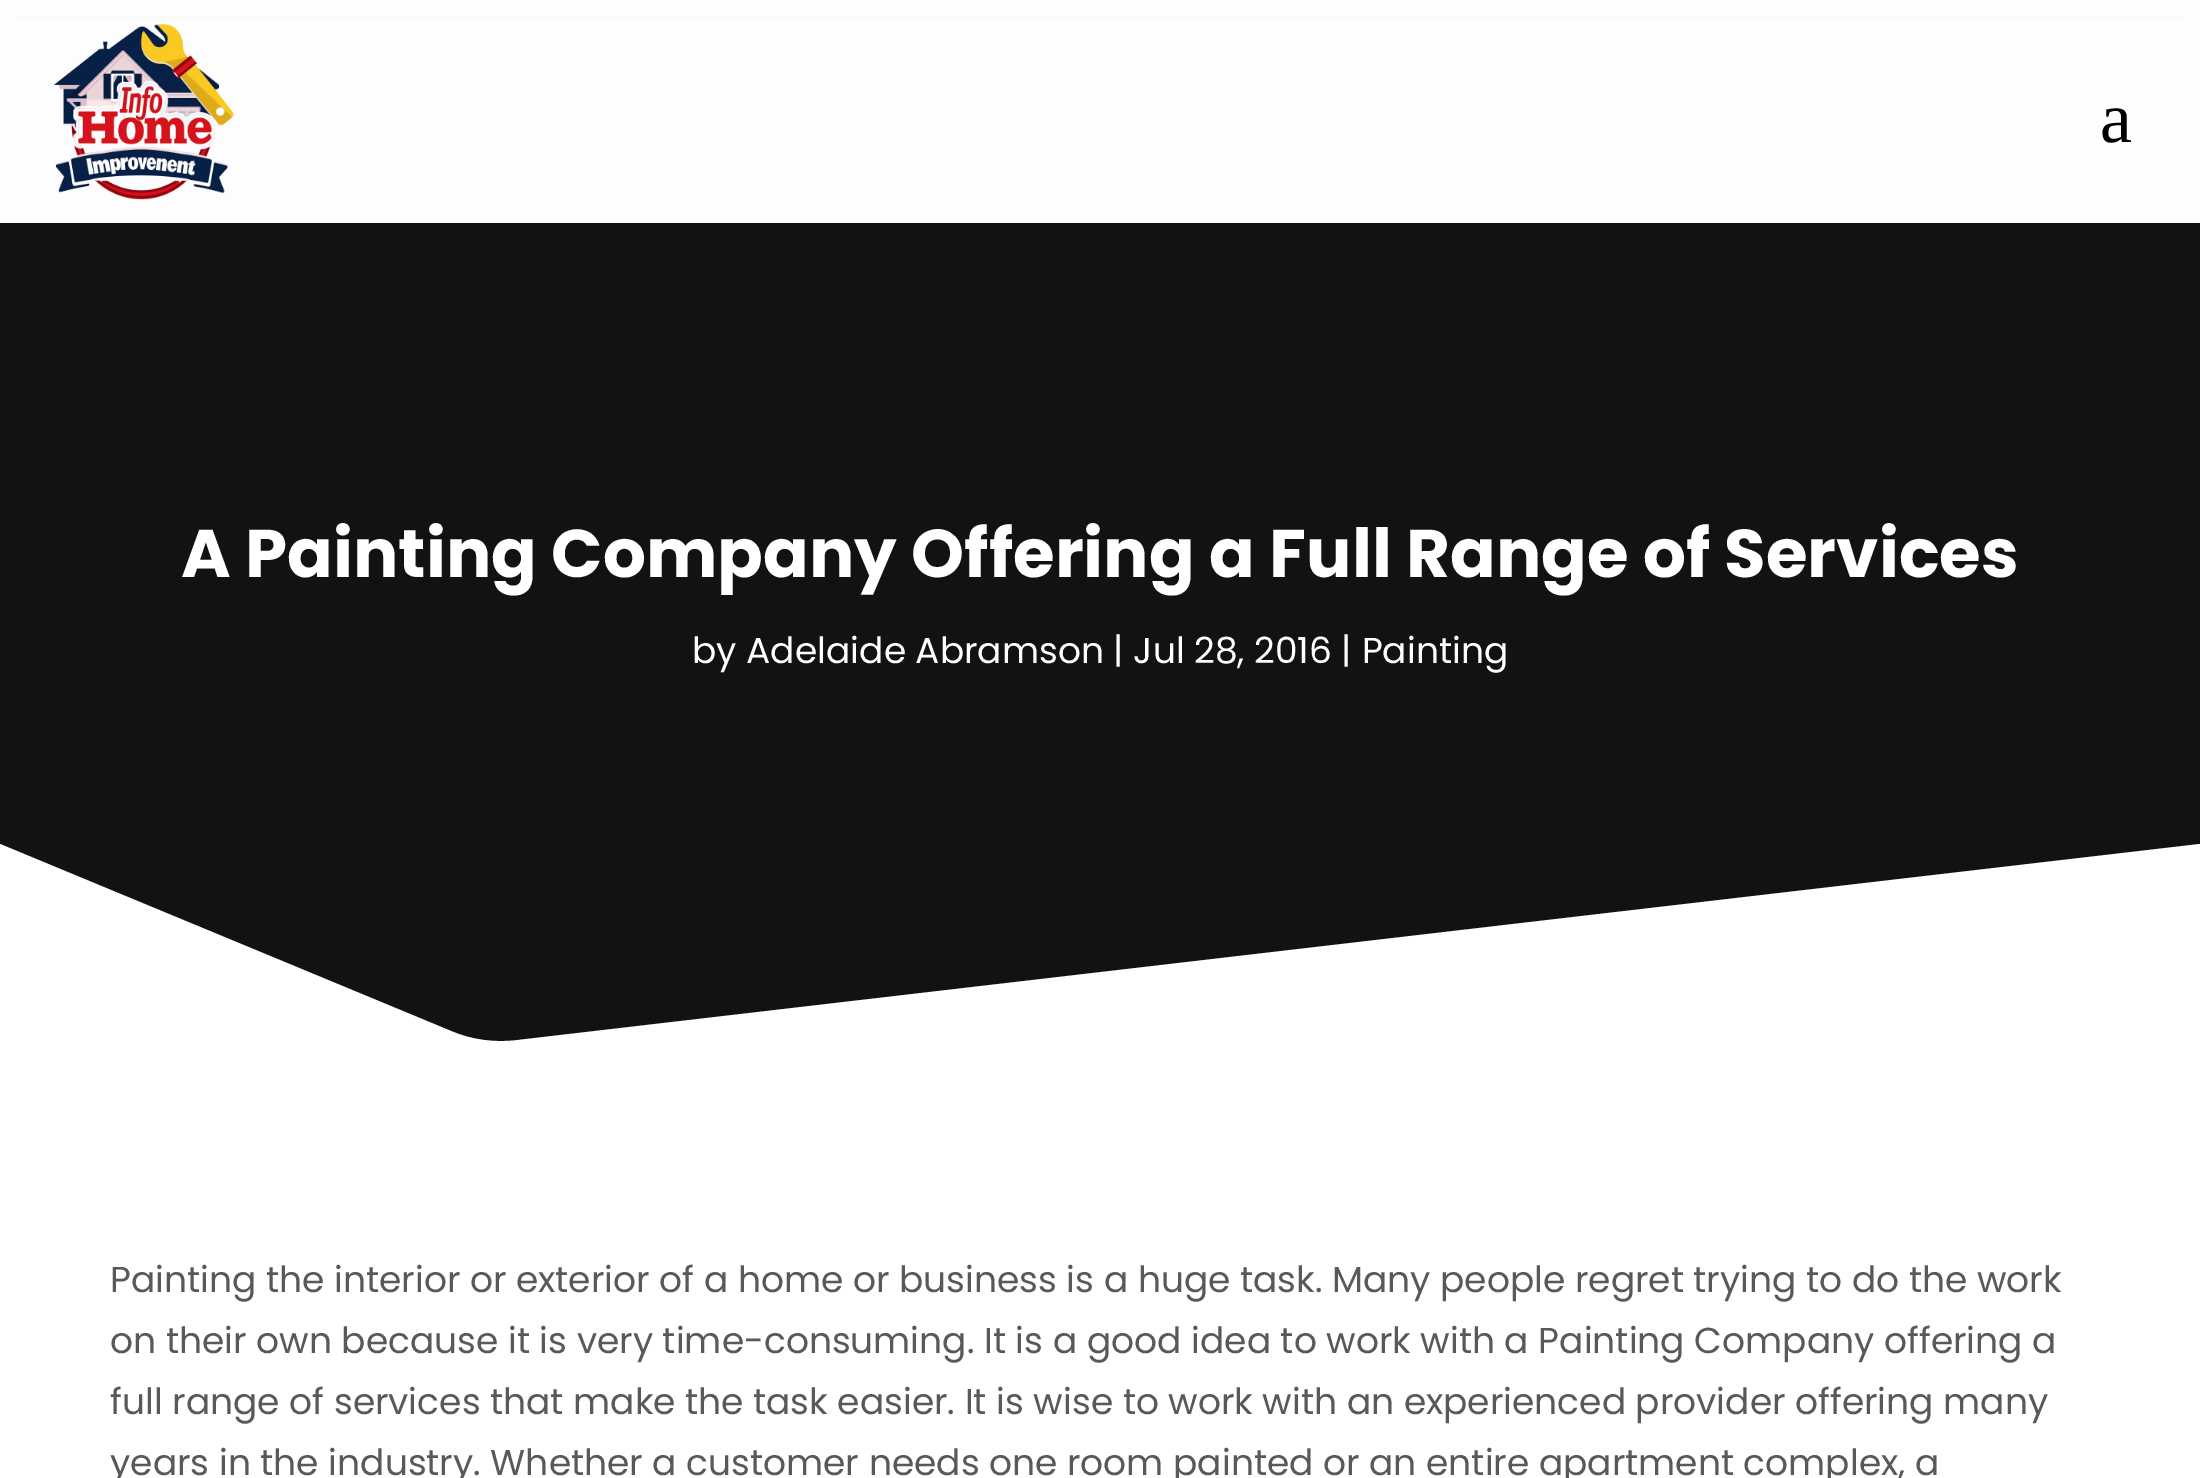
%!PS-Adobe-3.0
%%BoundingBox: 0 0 2200 1478
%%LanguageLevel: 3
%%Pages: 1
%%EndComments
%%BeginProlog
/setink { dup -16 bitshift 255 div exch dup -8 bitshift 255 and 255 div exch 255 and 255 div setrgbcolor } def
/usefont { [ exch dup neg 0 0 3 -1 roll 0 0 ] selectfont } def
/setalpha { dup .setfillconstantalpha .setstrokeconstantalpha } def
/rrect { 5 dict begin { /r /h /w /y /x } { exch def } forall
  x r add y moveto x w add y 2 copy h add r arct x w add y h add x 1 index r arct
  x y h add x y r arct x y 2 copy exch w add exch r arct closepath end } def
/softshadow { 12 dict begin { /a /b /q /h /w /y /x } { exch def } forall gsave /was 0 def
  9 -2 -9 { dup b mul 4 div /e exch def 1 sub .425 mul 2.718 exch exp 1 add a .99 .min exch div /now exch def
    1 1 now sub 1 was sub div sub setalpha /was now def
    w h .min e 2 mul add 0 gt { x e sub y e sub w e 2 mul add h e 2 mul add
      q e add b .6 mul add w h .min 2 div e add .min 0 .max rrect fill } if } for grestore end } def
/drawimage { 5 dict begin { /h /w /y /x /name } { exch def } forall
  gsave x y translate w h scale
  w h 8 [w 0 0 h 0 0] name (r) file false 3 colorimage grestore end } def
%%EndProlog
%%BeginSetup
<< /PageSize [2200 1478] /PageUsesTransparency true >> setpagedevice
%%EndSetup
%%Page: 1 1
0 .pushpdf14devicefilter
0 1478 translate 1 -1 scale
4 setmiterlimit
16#FFFFFF setink
0 0 2200 1478 rectfill
16#121212 setink
0 223 2200 819 rectfill
16#000000 setink
14 41 2173 195 0 20 0.1 softshadow
16#FEFEFE setink
0 19 2200 204 rectfill
(img1.raw) 54 24 180 176 drawimage
/LiberationSerif-Regular 72 usefont
16#000000 setink
2100 142 moveto (a) show
/Poppins-Bold 67.5 usefont
16#FFFFFF setink
181 577 moveto (A Painting Company Offering a Full Range of Services) show
/Poppins-Regular 36 usefont
692 663 moveto (by Adelaide Abramson | Jul 28, 2016 | Painting) show
0 844 moveto 451 1031 lineto 472 1040 495 1043 518 1040 curveto 2200 844 lineto 2200 1069 lineto 0 1069 lineto closepath fill
16#595959 setink
[
    [(Painting the interior or exterior of a home or business is a huge task. Many people regret trying to do the work) 110 1292]
    [(on their own because it is very time-consuming. It is a good idea to work with a Painting Company offering a) 110 1353]
    [(full range of services that make the task easier. It is wise to work with an experienced provider offering many) 110 1414]
    [(years in the industry. Whether a customer needs one room painted or an entire apartment complex, a) 110 1475]
] { aload pop moveto show } forall
.poppdf14devicefilter showpage
%%EOF
